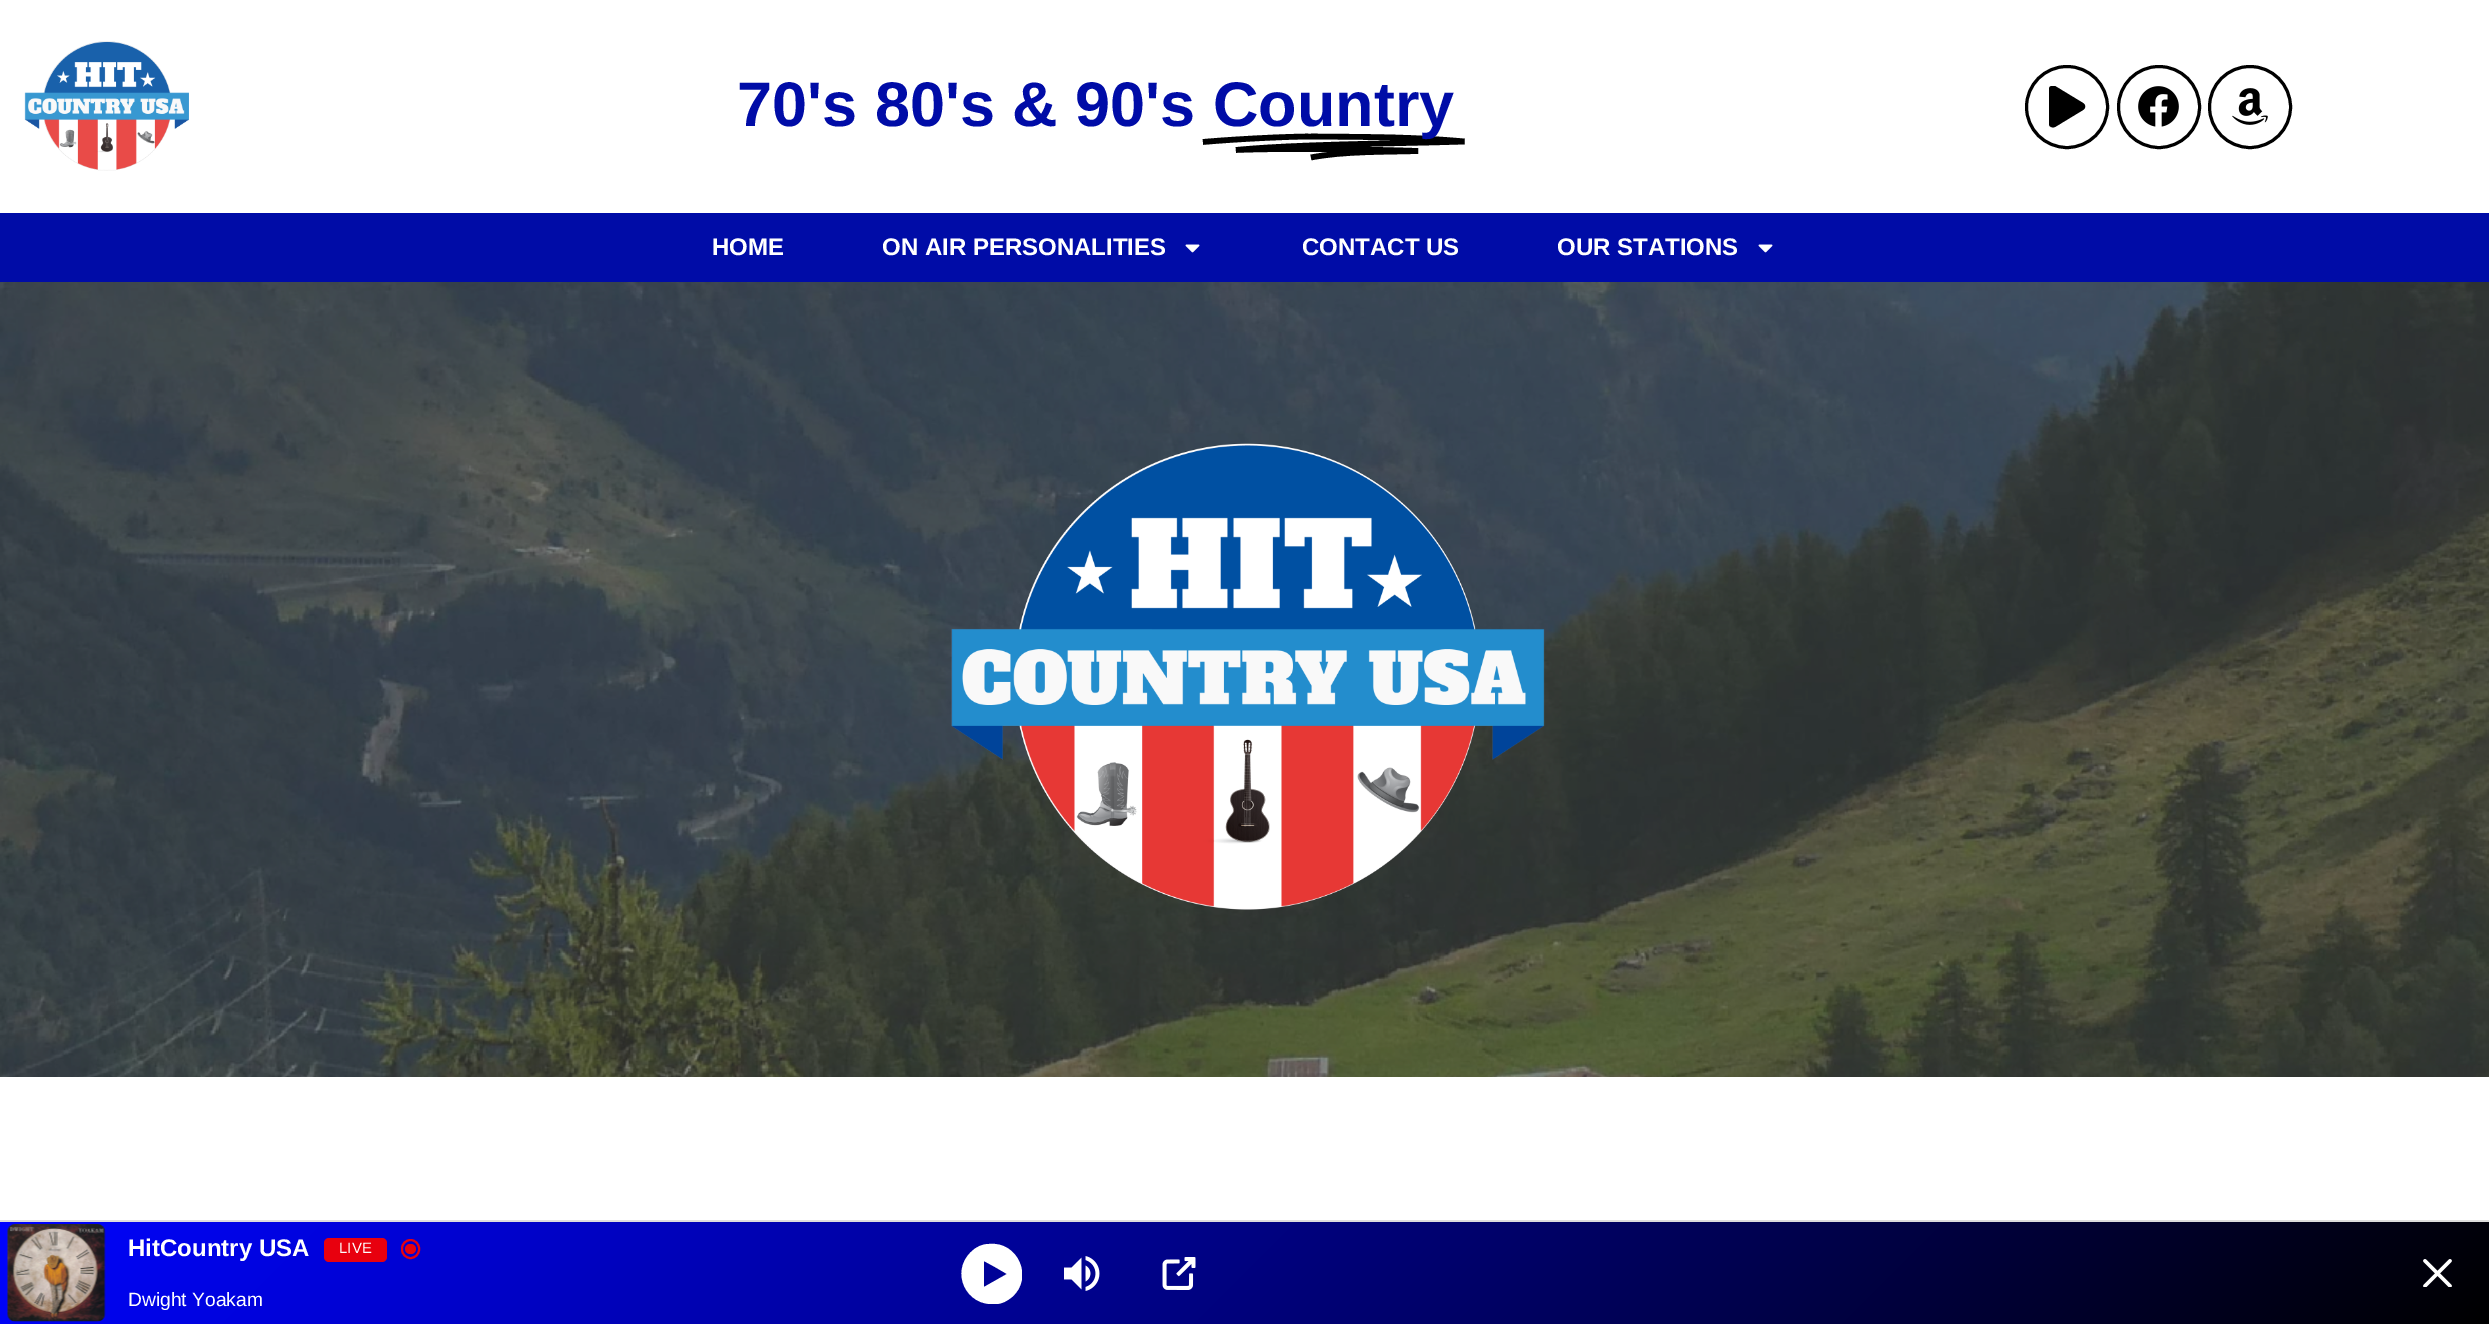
%!PS-Adobe-3.0
%%BoundingBox: 0 0 2489 1324
%%LanguageLevel: 3
%%Pages: 1
%%EndComments
%%BeginProlog
/setink { dup -16 bitshift 255 div exch dup -8 bitshift 255 and 255 div exch 255 and 255 div setrgbcolor } def
/usefont { [ exch dup neg 0 0 3 -1 roll 0 0 ] selectfont } def
/disc { newpath 0 360 arc closepath } def
/rrect { 5 dict begin { /r /h /w /y /x } { exch def } forall
  x r add y moveto x w add y 2 copy h add r arct x w add y h add x 1 index r arct
  x y h add x y r arct x y 2 copy exch w add exch r arct closepath end } def
/drawimage { 5 dict begin { /h /w /y /x /name } { exch def } forall
  gsave x y translate w h scale
  w h 8 [w 0 0 h 0 0] name (r) file false 3 colorimage grestore end } def
%%EndProlog
%%BeginSetup
<< /PageSize [2489 1324] >> setpagedevice
%%EndSetup
%%Page: 1 1
0 1324 translate 1 -1 scale
4 setmiterlimit
16#FFFFFF setink
0 0 2489 1324 rectfill
(img1.raw) 24 41 165 130 drawimage
16#000000 setink
5.6 setlinewidth
1203 142 moveto 1229.5 139.5 1284.5 136.5 1311 136.5 curveto 1377.5 137 1414.5 137 1464.5 141.5 curveto 1404 143.5 1296 144 1236 150 curveto 1280.5 148 1374 149.5 1418 151 curveto 1387.5 152 1343.5 151 1311 157.5 curveto stroke
/LiberationSans-Bold 63 usefont
16#000CA7 setink
737 126 moveto (70's 80's & 90's Country) show
16#000000 setink
3 setlinewidth
2067 107 40.5 disc stroke
gsave
2046 86 42 42 rectclip
2083 103 moveto 2055 86 lineto 2052 85 2049 86 2049 89 curveto 2049 124 lineto 2049 127 2052 128 2055 127 curveto 2083 110 lineto 2086 108 2086 105 2083 103 curveto closepath fill
grestore
2159 107 40.5 disc stroke
(img2.raw) 2138 86 41 41 drawimage
2250 107 40.5 disc stroke
(img3.raw) 2232 88 36 37 drawimage
16#000CA7 setink
0 213 2489 69 rectfill
/LiberationSans-Bold 24 usefont
16#FFFFFF setink
712 255 moveto (HOME) show
882 255 moveto (ON AIR PERSONALITIES) show
(img4.raw) 1185 244 15 9 drawimage
1302 255 moveto (CONTACT US) show
1557 255 moveto (OUR STATIONS) show
(img4.raw) 1758 244 15 9 drawimage
(img5.raw) 0 282 2489 795 drawimage
(img6.raw) 951 443 594 467 drawimage
gsave 0 1222 moveto 2489 1222 lineto 2489 1324 lineto 0 1324 lineto closepath clip newpath
<< /ShadingType 2 /ColorSpace /DeviceRGB /Coords [597 624 1893 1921] /Extend [true true] /Function << /FunctionType 2 /Domain [0 1] /C0 [0 0.012 1] /C1 [0 0 0] /N 1 >> >> shfill grestore
16#DDDDDD setink
0 1220 2489 2 rectfill
(img7.raw) 7 1224 99 98 drawimage
16#FFFFFF setink
128 1256 moveto (HitCountry USA) show
16#E8000E setink
324 1238 63 24 5 rrect fill
/LiberationSans-Regular 15 usefont
16#FFFFFF setink
339 1253 moveto (LIVE) show
16#E8000E setink
405 1244 11 10 5 rrect fill
2 setlinewidth
402 1240 17 18 8.5 rrect stroke
/LiberationSans-Regular 19.25 usefont
16#FFFFFF setink
128 1306 moveto (Dwight Yoakam) show
gsave
960 1242 62 62 rectclip
989 1244 moveto 982 1244 976 1247 971 1252 curveto 950 1272 966 1307 996 1304 curveto 1002 1304 1007 1301 1012 1297 curveto 1034 1278 1018 1241 989 1244 curveto closepath 995 1267 moveto 1007 1274 lineto 984 1287 lineto 984 1261 lineto closepath fill
grestore
(img8.raw) 1064 1256 36 35 drawimage
(img9.raw) 1162 1257 34 33 drawimage
(img10.raw) 2423 1259 29 28 drawimage
showpage
%%EOF
